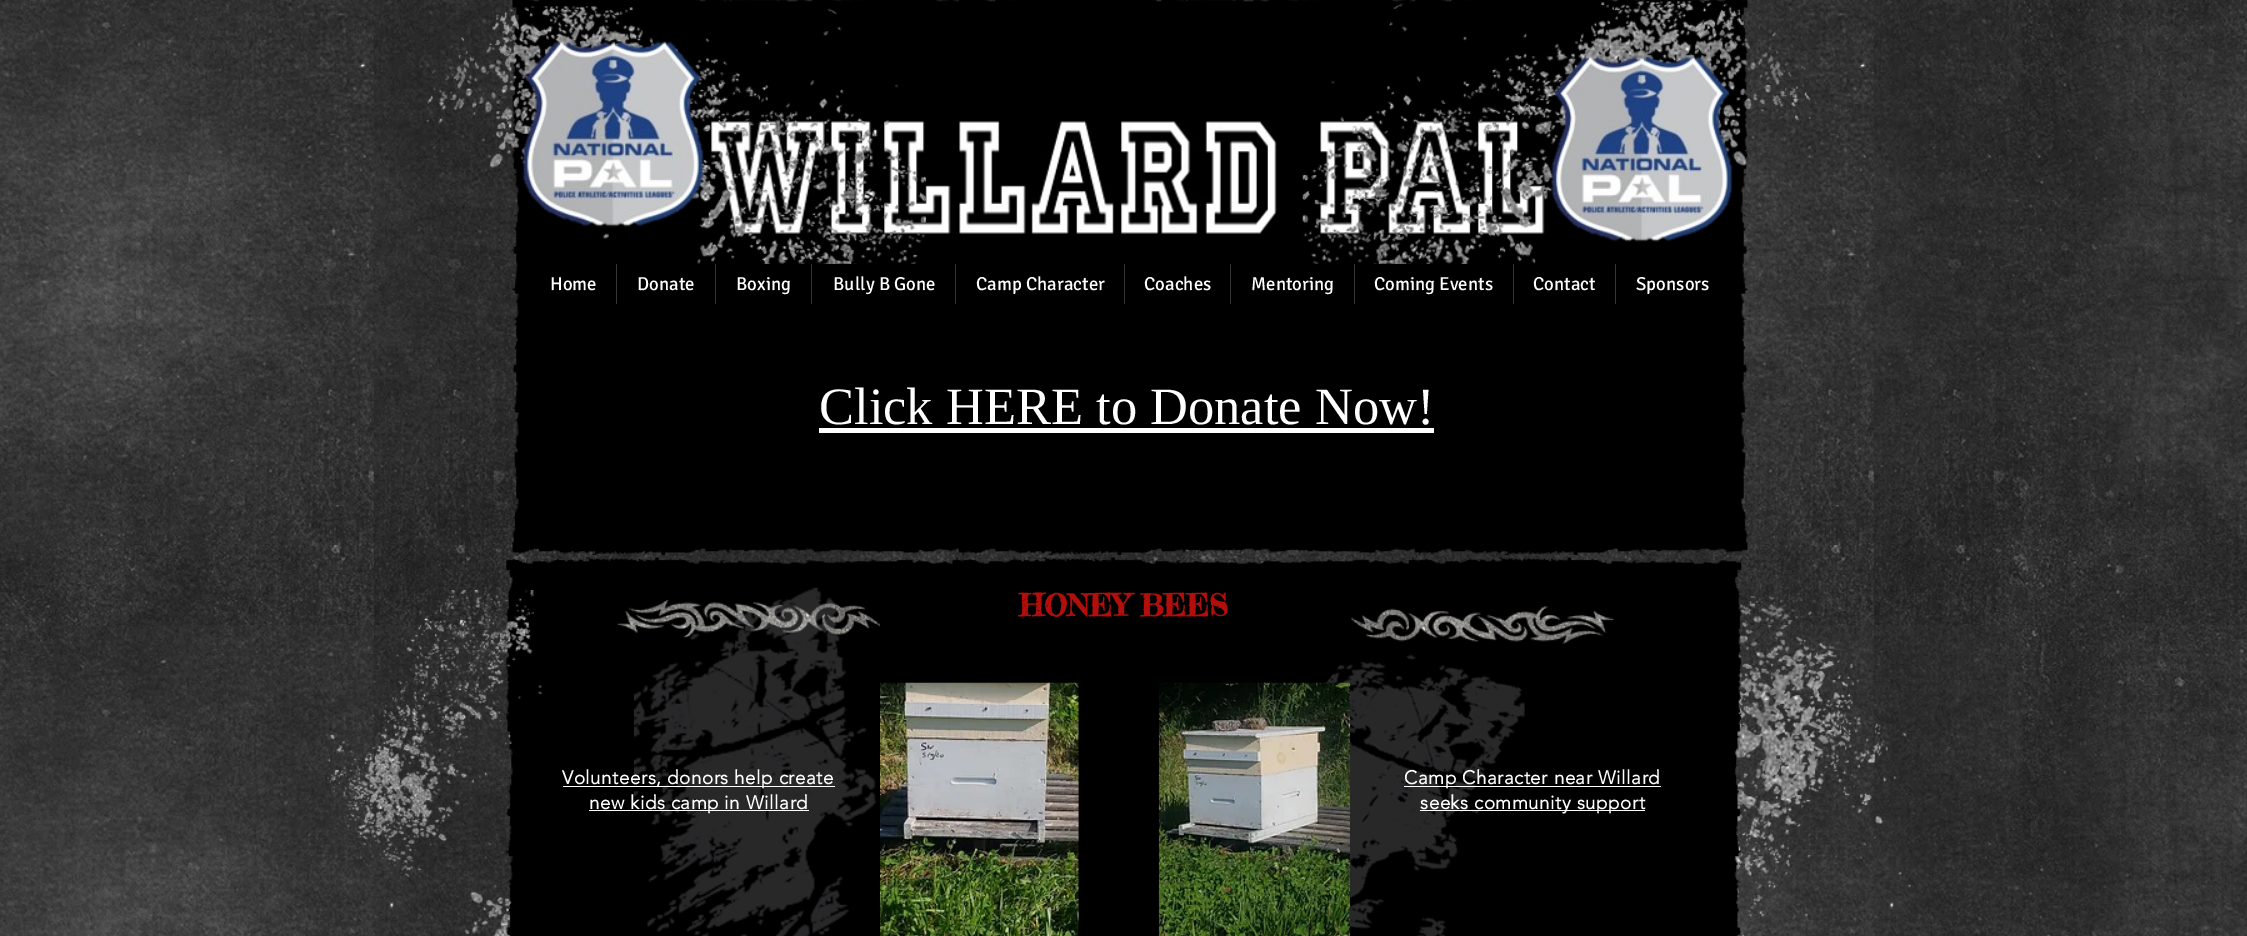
%!PS-Adobe-3.0
%%BoundingBox: 0 0 2247 936
%%LanguageLevel: 3
%%Pages: 1
%%EndComments
%%BeginProlog
/setink { dup -16 bitshift 255 div exch dup -8 bitshift 255 and 255 div exch 255 and 255 div setrgbcolor } def
/usefont { [ exch dup neg 0 0 3 -1 roll 0 0 ] selectfont } def
/setalpha { dup .setfillconstantalpha .setstrokeconstantalpha } def
/rrect { 5 dict begin { /r /h /w /y /x } { exch def } forall
  x r add y moveto x w add y 2 copy h add r arct x w add y h add x 1 index r arct
  x y h add x y r arct x y 2 copy exch w add exch r arct closepath end } def
/softshadow { 12 dict begin { /a /b /q /h /w /y /x } { exch def } forall gsave /was 0 def
  9 -2 -9 { dup b mul 4 div /e exch def 1 sub .425 mul 2.718 exch exp 1 add a .99 .min exch div /now exch def
    1 1 now sub 1 was sub div sub setalpha /was now def
    w h .min e 2 mul add 0 gt { x e sub y e sub w e 2 mul add h e 2 mul add
      q e add b .6 mul add w h .min 2 div e add .min 0 .max rrect fill } if } for grestore end } def
/drawimage { 5 dict begin { /h /w /y /x /name } { exch def } forall
  gsave x y translate w h scale
  w h 8 [w 0 0 h 0 0] name (r) file false 3 colorimage grestore end } def
%%EndProlog
%%BeginSetup
<< /PageSize [2247 936] /PageUsesTransparency true >> setpagedevice
%%EndSetup
%%Page: 1 1
0 .pushpdf14devicefilter
0 936 translate 1 -1 scale
4 setmiterlimit
16#FFFFFF setink
0 0 2247 936 rectfill
(img1.raw) 0 0 2247 936 drawimage
16#000000 setink
521 7 1218 536 rectfill
(img2.raw) 512 0 1236 8 drawimage
(img3.raw) 512 542 1236 13 drawimage
(img4.raw) 512 7 9 536 drawimage
(img5.raw) 1739 7 9 536 drawimage
(img9.raw) 711 121 834 113 drawimage
(img6.raw) 426 6 501 258 drawimage
(img7.raw) 1302 1 509 263 drawimage
(img8.raw) 522 41 182 186 drawimage
(img10.raw) 1551 56 182 186 drawimage
530 265 1199 40 0 2.5 0.6 softshadow
/Signika-Regular 18.75 usefont
16#FFFFFF setink
550 290 moveto (Home) show
16#333333 setink
616 264 1 40 rectfill
16#FFFFFF setink
637 290 moveto (Donate) show
16#333333 setink
715 264 1 40 rectfill
16#FFFFFF setink
736 290 moveto (Boxing) show
16#333333 setink
811 264 1 40 rectfill
16#FFFFFF setink
833 290 moveto (Bully B Gone) show
16#333333 setink
955 264 1 40 rectfill
16#FFFFFF setink
976 290 moveto (Camp Character) show
16#333333 setink
1124 264 1 40 rectfill
16#FFFFFF setink
1144 290 moveto (Coaches) show
16#333333 setink
1230 264 1 40 rectfill
16#FFFFFF setink
1251 290 moveto (Mentoring) show
16#333333 setink
1354 264 1 40 rectfill
16#FFFFFF setink
1374 290 moveto (Coming Events) show
16#333333 setink
1513 264 1 40 rectfill
16#FFFFFF setink
1533 290 moveto (Contact) show
16#333333 setink
1615 264 1 40 rectfill
16#FFFFFF setink
1636 290 moveto (Sponsors) show
/LiberationSerif-Regular 52.5 usefont
819 424 moveto (Click HERE to Donate Now!) show
819 428 615 5 rectfill
16#000000 setink
515 570 1218 366 rectfill
(img21.raw) 462 835 50 101 drawimage
(img13.raw) 506 570 9 366 drawimage
(img11.raw) 327 590 216 288 drawimage
(img12.raw) 506 557 1236 13 drawimage
(img22.raw) 1734 596 177 340 drawimage
(img14.raw) 1733 570 9 366 drawimage
(img15.raw) 634 587 243 349 drawimage
/FrederickatheGreat-Bold 30 usefont
16#B20F0C setink
1019 616 moveto (HONEY BEES) show
(img16.raw) 617 600 263 38 drawimage
16#FFFFFF setink
563 786 272 1 rectfill
/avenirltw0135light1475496-Bold 18.75 usefont
562 784 moveto 0.55 0 (Volunteers, donors help create) ashow
589 810 220 1 rectfill
589 809 moveto 0.55 0 (new kids camp in Willard) ashow
(img17.raw) 880 682 199 254 drawimage
(img19.raw) 1326 654 199 282 drawimage
(img18.raw) 1158 682 192 254 drawimage
1404 786 257 1 rectfill
1404 784 moveto 0.55 0 (Camp Character near Willard) ashow
1420 810 225 1 rectfill
1420 809 moveto 0.55 0 (seeks community support) ashow
(img20.raw) 1351 606 263 38 drawimage
.poppdf14devicefilter showpage
%%EOF
